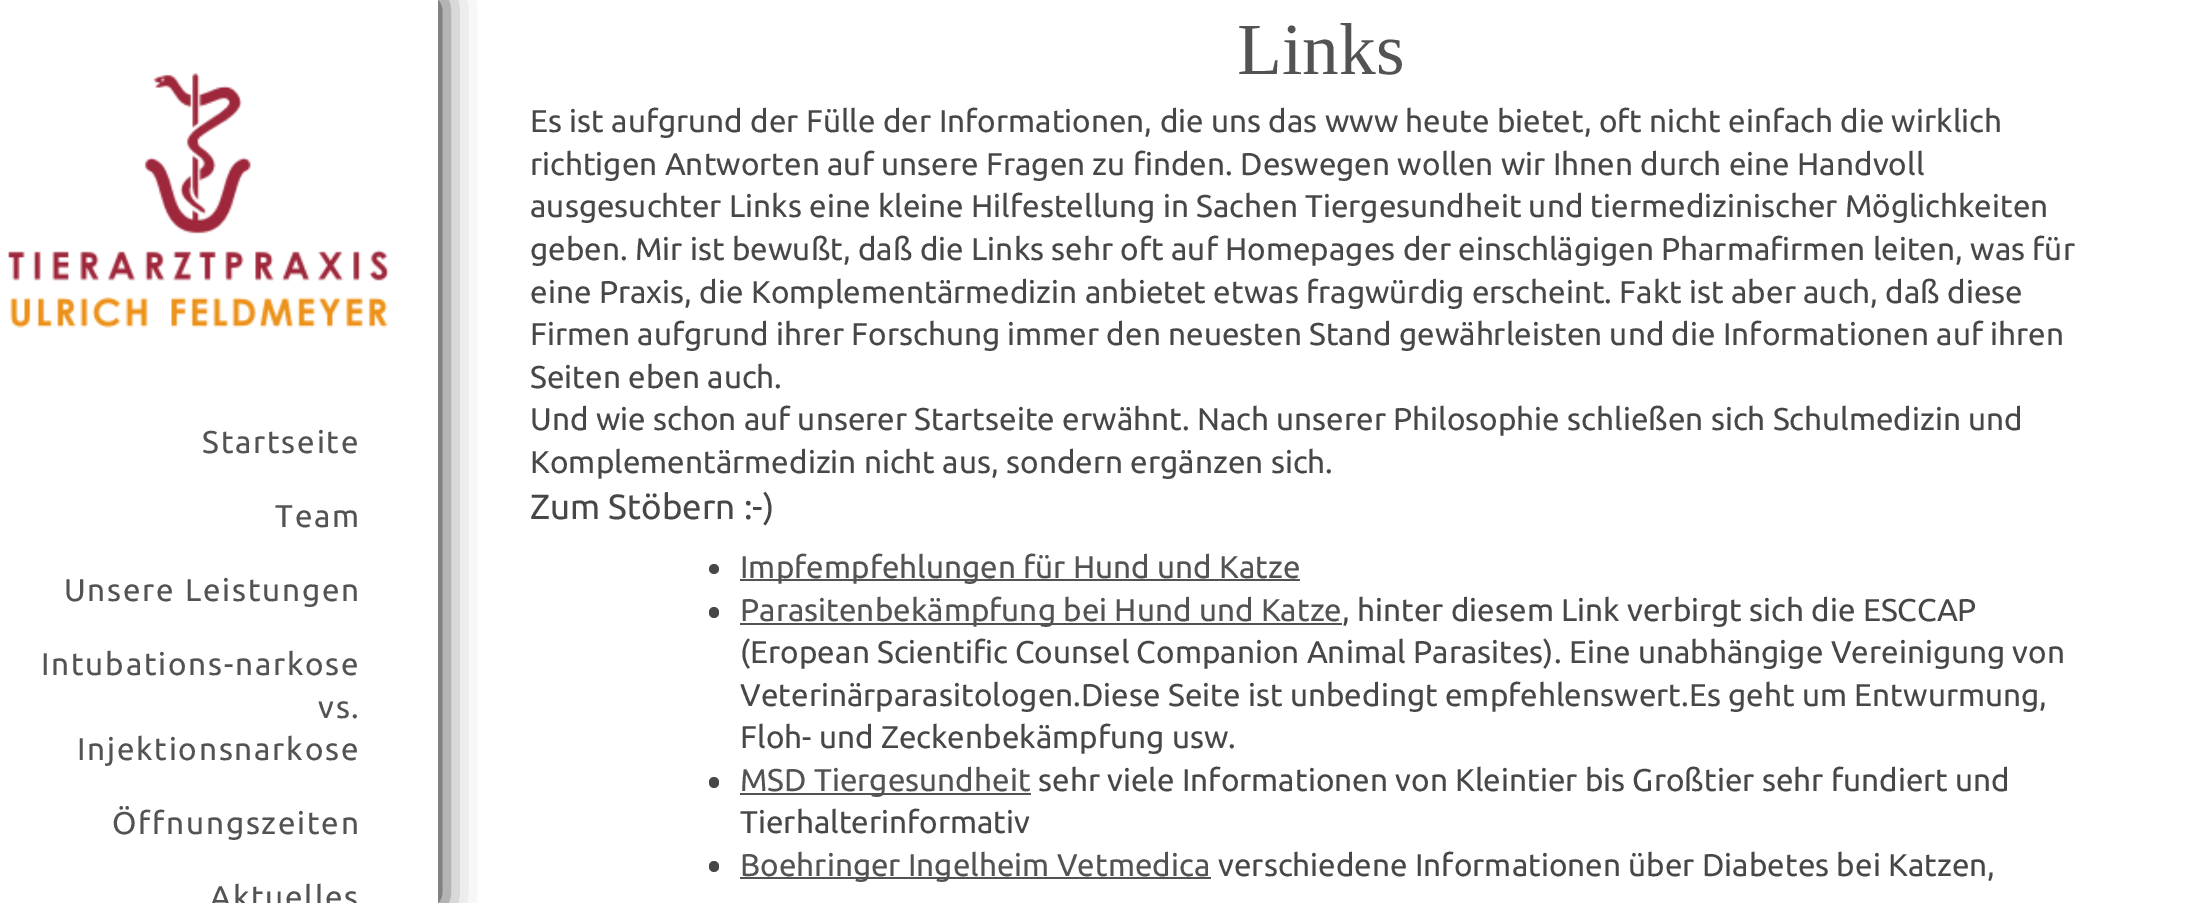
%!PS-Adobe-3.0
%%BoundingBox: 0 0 2203 903
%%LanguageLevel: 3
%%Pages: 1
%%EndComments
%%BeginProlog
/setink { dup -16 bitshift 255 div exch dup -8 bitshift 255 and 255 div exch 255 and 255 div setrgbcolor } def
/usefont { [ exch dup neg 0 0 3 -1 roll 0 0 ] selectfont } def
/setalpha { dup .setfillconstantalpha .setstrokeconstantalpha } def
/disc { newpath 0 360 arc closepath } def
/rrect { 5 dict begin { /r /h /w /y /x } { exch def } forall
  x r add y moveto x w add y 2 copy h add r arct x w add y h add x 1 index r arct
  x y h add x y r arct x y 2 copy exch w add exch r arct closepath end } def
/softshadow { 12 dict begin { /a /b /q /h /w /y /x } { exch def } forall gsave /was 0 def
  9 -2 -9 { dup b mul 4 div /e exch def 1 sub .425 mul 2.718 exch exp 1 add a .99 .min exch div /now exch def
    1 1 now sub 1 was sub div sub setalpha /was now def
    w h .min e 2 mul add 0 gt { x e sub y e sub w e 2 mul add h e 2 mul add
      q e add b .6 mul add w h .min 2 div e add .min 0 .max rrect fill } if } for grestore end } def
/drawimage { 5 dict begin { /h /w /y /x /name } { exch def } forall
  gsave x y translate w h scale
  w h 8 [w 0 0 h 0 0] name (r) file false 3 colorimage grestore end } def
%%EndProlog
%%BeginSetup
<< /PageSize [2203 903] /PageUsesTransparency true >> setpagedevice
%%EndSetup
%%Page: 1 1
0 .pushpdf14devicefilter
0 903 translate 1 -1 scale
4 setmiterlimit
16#FFFFFF setink
0 0 2203 903 rectfill
16#000000 setink
0 0 438 903 0 17.5 1 softshadow
16#FFFFFF setink
0 0 438 903 rectfill
/LiberationSerif-Regular 73.5 usefont
16#535353 setink
1237 74 moveto (Links) show
/Ubuntu-Regular 31.5 usefont
16#474747 setink
[
    [(Es ist aufgrund der Fülle der Informationen, die uns das www heute bietet, oft nicht einfach die wirklich) 530 132]
    [(richtigen Antworten auf unsere Fragen zu finden. Deswegen wollen wir Ihnen durch eine Handvoll) 530 175]
    [(ausgesuchter Links eine kleine Hilfestellung in Sachen Tiergesundheit und tiermedizinischer Möglichkeiten) 530 217]
    [(geben. Mir ist bewußt, daß die Links sehr oft auf Homepages der einschlägigen Pharmafirmen leiten, was für) 530 260]
    [(eine Praxis, die Komplementärmedizin anbietet etwas fragwürdig erscheint. Fakt ist aber auch, daß diese) 530 303]
    [(Firmen aufgrund ihrer Forschung immer den neuesten Stand gewährleisten und die Informationen auf ihren) 530 345]
    [(Seiten eben auch.) 530 388]
    [(Und wie schon auf unserer Startseite erwähnt. Nach unserer Philosophie schließen sich Schulmedizin und) 530 430]
    [(Komplementärmedizin nicht aus, sondern ergänzen sich.) 530 473]
] { aload pop moveto show } forall
/Ubuntu-Regular 35 usefont
530 519 moveto (Zum Stöbern :-\)) show
714 569 5 disc fill
16#535353 setink
740 579 560 2 rectfill
/Ubuntu-Regular 31.5 usefont
740 578 moveto (Impfempfehlungen für Hund und Katze) show
16#474747 setink
709 607 10 11 5 rrect fill
16#535353 setink
740 623 602 2 rectfill
740 621 moveto (Parasitenbekämpfung bei Hund und Katze) show
16#474747 setink
[
    [(, hinter diesem Link verbirgt sich die ESCCAP) 1342 621]
    [(\(Eropean Scientific Counsel Companion Animal Parasites\). Eine unabhängige Vereinigung von) 740 663]
    [(Veterinärparasitologen.Diese Seite ist unbedingt empfehlenswert.Es geht um Entwurmung,) 740 706]
    [(Floh- und Zeckenbekämpfung usw.) 740 748]
] { aload pop moveto show } forall
709 777 10 11 5 rrect fill
16#535353 setink
740 793 291 2 rectfill
740 791 moveto (MSD Tiergesundheit) show
16#474747 setink
1038 791 moveto (sehr viele Informationen von Kleintier bis Großtier sehr fundiert und) show
740 833 moveto (Tierhalterinformativ) show
709 861 10 11 5 rrect fill
16#535353 setink
740 877 471 2 rectfill
740 876 moveto (Boehringer Ingelheim Vetmedica) show
16#474747 setink
1218 876 moveto (verschiedene Informationen über Diabetes bei Katzen,) show
(img1.raw) 8 73 381 255 drawimage
16#535353 setink
202 453 moveto 1.75 0 (Startseite) ashow
275 527 moveto 1.75 0 (Team) ashow
64 601 moveto 1.75 0 (Unsere Leistungen) ashow
41 675 moveto 1.75 0 (Intubations-narkose) ashow
318 718 moveto 1.75 0 (vs.) ashow
77 760 moveto 1.75 0 (Injektionsnarkose) ashow
112 834 moveto 1.75 0 (Öffnungszeiten) ashow
210 908 moveto 1.75 0 (Aktuelles) ashow
.poppdf14devicefilter showpage
%%EOF
